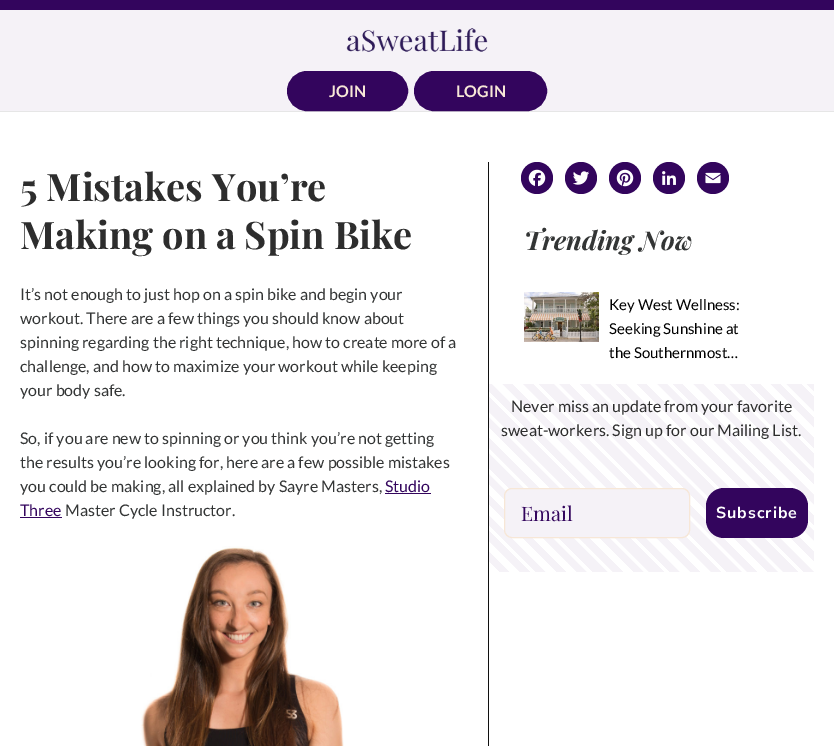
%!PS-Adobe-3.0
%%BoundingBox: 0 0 834 746
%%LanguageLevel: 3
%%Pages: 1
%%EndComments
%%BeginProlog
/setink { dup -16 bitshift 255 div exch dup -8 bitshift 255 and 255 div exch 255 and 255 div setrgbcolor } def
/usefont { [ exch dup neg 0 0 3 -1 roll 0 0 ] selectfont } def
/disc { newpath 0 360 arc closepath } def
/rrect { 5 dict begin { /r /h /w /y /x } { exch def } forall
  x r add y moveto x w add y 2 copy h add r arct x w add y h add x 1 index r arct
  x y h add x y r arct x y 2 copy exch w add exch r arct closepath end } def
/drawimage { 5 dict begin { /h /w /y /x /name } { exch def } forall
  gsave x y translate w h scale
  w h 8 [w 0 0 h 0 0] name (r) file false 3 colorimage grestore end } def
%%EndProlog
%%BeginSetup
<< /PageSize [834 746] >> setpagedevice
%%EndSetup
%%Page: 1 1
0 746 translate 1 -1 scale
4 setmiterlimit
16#FFFFFF setink
0 0 834 746 rectfill
[
    [0 111 834 1 16#E6E6E6]
    [0 0 834 10 16#33055D]
    [0 10 834 101 16#F5F2F7]
] { aload pop setink rectfill } forall
(img1.raw) 346 28 142 24 drawimage
16#33055D setink
288 72 119 38 19 rrect gsave fill grestore
2 setlinewidth
stroke
/Lato-Bold 16 usefont
16#F7E7D7 setink
329 97 moveto (JOIN) show
16#33055D setink
415 72 131 38 19 rrect gsave fill grestore
stroke
16#F7E7D7 setink
456 97 moveto (LOGIN) show
16#101010 setink
488 162 1 584 rectfill
/PlayfairDisplay-Bold 38 usefont
16#2D2D2D setink
20 201 moveto (5 Mistakes You’re) show
20 249 moveto (Making on a Spin Bike) show
/Lato-Regular 16 usefont
16#333535 setink
[
    [(It’s not enough to just hop on a spin bike and begin your) 20 300]
    [(workout. There are a few things you should know about) 20 324]
    [(spinning regarding the right technique, how to create more of a) 20 348]
    [(challenge, and how to maximize your workout while keeping) 20 372]
    [(your body safe.) 20 396]
    [(So, if you are new to spinning or you think you’re not getting) 20 444]
    [(the results you’re looking for, here are a few possible mistakes) 20 468]
    [(you could be making, all explained by Sayre Masters,) 20 492]
] { aload pop moveto show } forall
16#33055D setink
385 492 moveto (Studio) show
385 493 46 1 rectfill
20 516 moveto (Three) show
20 517 42 1 rectfill
16#333535 setink
65 516 moveto (Master Cycle Instructor.) show
(img2.raw) 140 546 204 200 drawimage
16#33055D setink
537 178 16 disc fill
(img3.raw) 528 169 18 18 drawimage
581 178 16 disc fill
(img4.raw) 573 171 16 14 drawimage
625 178 16 disc fill
(img5.raw) 616 169 18 18 drawimage
669 178 16 disc fill
(img6.raw) 662 171 14 14 drawimage
713 178 16 disc fill
(img7.raw) 705 172 16 12 drawimage
/PlayfairDisplay-BoldItalic 26 usefont
16#333535 setink
524 250 moveto (Trending Now) show
(img8.raw) 524 292 75 50 drawimage
/Lato-Regular 15 usefont
16#000000 setink
[
    [(Key West Wellness:) 609 310]
    [(Seeking Sunshine at) 609 334]
    [(the Southernmost…) 609 358]
] { aload pop moveto show } forall
gsave 489 384 moveto 814 384 lineto 814 572 lineto 489 572 lineto closepath clip newpath
<< /ShadingType 2 /ColorSpace /DeviceRGB /Coords [523 606 781 348] /Extend [true true] /Function << /FunctionType 3 /Domain [0 1] /Functions [<< /FunctionType 2 /Domain [0 1] /C0 [1 1 1] /C1 [1 1 1] /N 1 >> << /FunctionType 2 /Domain [0 1] /C0 [1 1 1] /C1 [1 1 1] /N 1 >> << /FunctionType 2 /Domain [0 1] /C0 [0.961 0.949 0.969] /C1 [0.961 0.949 0.969] /N 1 >> << /FunctionType 2 /Domain [0 1] /C0 [0.961 0.949 0.969] /C1 [0.961 0.949 0.969] /N 1 >> << /FunctionType 2 /Domain [0 1] /C0 [1 1 1] /C1 [1 1 1] /N 1 >> << /FunctionType 2 /Domain [0 1] /C0 [1 1 1] /C1 [1 1 1] /N 1 >> << /FunctionType 2 /Domain [0 1] /C0 [0.961 0.949 0.969] /C1 [0.961 0.949 0.969] /N 1 >> << /FunctionType 2 /Domain [0 1] /C0 [0.961 0.949 0.969] /C1 [0.961 0.949 0.969] /N 1 >> << /FunctionType 2 /Domain [0 1] /C0 [1 1 1] /C1 [1 1 1] /N 1 >> << /FunctionType 2 /Domain [0 1] /C0 [0.961 0.949 0.969] /C1 [0.961 0.949 0.969] /N 1 >> << /FunctionType 2 /Domain [0 1] /C0 [0.961 0.949 0.969] /C1 [0.961 0.949 0.969] /N 1 >> << /FunctionType 2 /Domain [0 1] /C0 [1 1 1] /C1 [1 1 1] /N 1 >> << /FunctionType 2 /Domain [0 1] /C0 [1 1 1] /C1 [1 1 1] /N 1 >> << /FunctionType 2 /Domain [0 1] /C0 [0.961 0.949 0.969] /C1 [0.961 0.949 0.969] /N 1 >> << /FunctionType 2 /Domain [0 1] /C0 [0.961 0.949 0.969] /C1 [0.961 0.949 0.969] /N 1 >> << /FunctionType 2 /Domain [0 1] /C0 [1 1 1] /C1 [1 1 1] /N 1 >> << /FunctionType 2 /Domain [0 1] /C0 [1 1 1] /C1 [1 1 1] /N 1 >> << /FunctionType 2 /Domain [0 1] /C0 [0.961 0.949 0.969] /C1 [0.961 0.949 0.969] /N 1 >> << /FunctionType 2 /Domain [0 1] /C0 [0.961 0.949 0.969] /C1 [0.961 0.949 0.969] /N 1 >> << /FunctionType 2 /Domain [0 1] /C0 [1 1 1] /C1 [1 1 1] /N 1 >> << /FunctionType 2 /Domain [0 1] /C0 [0.961 0.949 0.969] /C1 [0.961 0.949 0.969] /N 1 >> << /FunctionType 2 /Domain [0 1] /C0 [0.961 0.949 0.969] /C1 [0.961 0.949 0.969] /N 1 >> << /FunctionType 2 /Domain [0 1] /C0 [0.961 0.949 0.969] /C1 [0.961 0.949 0.969] /N 1 >> << /FunctionType 2 /Domain [0 1] /C0 [1 1 1] /C1 [1 1 1] /N 1 >> << /FunctionType 2 /Domain [0 1] /C0 [0.961 0.949 0.969] /C1 [0.961 0.949 0.969] /N 1 >> << /FunctionType 2 /Domain [0 1] /C0 [0.961 0.949 0.969] /C1 [0.961 0.949 0.969] /N 1 >> << /FunctionType 2 /Domain [0 1] /C0 [1 1 1] /C1 [1 1 1] /N 1 >> << /FunctionType 2 /Domain [0 1] /C0 [1 1 1] /C1 [1 1 1] /N 1 >> << /FunctionType 2 /Domain [0 1] /C0 [0.961 0.949 0.969] /C1 [0.961 0.949 0.969] /N 1 >> << /FunctionType 2 /Domain [0 1] /C0 [0.961 0.949 0.969] /C1 [0.961 0.949 0.969] /N 1 >> << /FunctionType 2 /Domain [0 1] /C0 [1 1 1] /C1 [1 1 1] /N 1 >> << /FunctionType 2 /Domain [0 1] /C0 [0.961 0.949 0.969] /C1 [0.961 0.949 0.969] /N 1 >> << /FunctionType 2 /Domain [0 1] /C0 [0.961 0.949 0.969] /C1 [0.961 0.949 0.969] /N 1 >> << /FunctionType 2 /Domain [0 1] /C0 [0.961 0.949 0.969] /C1 [0.961 0.949 0.969] /N 1 >> << /FunctionType 2 /Domain [0 1] /C0 [1 1 1] /C1 [1 1 1] /N 1 >> << /FunctionType 2 /Domain [0 1] /C0 [0.961 0.949 0.969] /C1 [0.961 0.949 0.969] /N 1 >> << /FunctionType 2 /Domain [0 1] /C0 [0.961 0.949 0.969] /C1 [0.961 0.949 0.969] /N 1 >> << /FunctionType 2 /Domain [0 1] /C0 [1 1 1] /C1 [1 1 1] /N 1 >> << /FunctionType 2 /Domain [0 1] /C0 [1 1 1] /C1 [1 1 1] /N 1 >> << /FunctionType 2 /Domain [0 1] /C0 [0.961 0.949 0.969] /C1 [0.961 0.949 0.969] /N 1 >> << /FunctionType 2 /Domain [0 1] /C0 [0.961 0.949 0.969] /C1 [0.961 0.949 0.969] /N 1 >> << /FunctionType 2 /Domain [0 1] /C0 [1 1 1] /C1 [1 1 1] /N 1 >> << /FunctionType 2 /Domain [0 1] /C0 [1 1 1] /C1 [1 1 1] /N 1 >> << /FunctionType 2 /Domain [0 1] /C0 [0.961 0.949 0.969] /C1 [0.961 0.949 0.969] /N 1 >> << /FunctionType 2 /Domain [0 1] /C0 [0.961 0.949 0.969] /C1 [0.961 0.949 0.969] /N 1 >> << /FunctionType 2 /Domain [0 1] /C0 [1 1 1] /C1 [1 1 1] /N 1 >> << /FunctionType 2 /Domain [0 1] /C0 [0.961 0.949 0.969] /C1 [0.961 0.949 0.969] /N 1 >> << /FunctionType 2 /Domain [0 1] /C0 [0.961 0.949 0.969] /C1 [0.961 0.949 0.969] /N 1 >> << /FunctionType 2 /Domain [0 1] /C0 [0.961 0.949 0.969] /C1 [0.961 0.949 0.969] /N 1 >> << /FunctionType 2 /Domain [0 1] /C0 [1 1 1] /C1 [1 1 1] /N 1 >> << /FunctionType 2 /Domain [0 1] /C0 [0.961 0.949 0.969] /C1 [0.961 0.949 0.969] /N 1 >> << /FunctionType 2 /Domain [0 1] /C0 [0.961 0.949 0.969] /C1 [0.961 0.949 0.969] /N 1 >> << /FunctionType 2 /Domain [0 1] /C0 [1 1 1] /C1 [1 1 1] /N 1 >> << /FunctionType 2 /Domain [0 1] /C0 [1 1 1] /C1 [1 1 1] /N 1 >> << /FunctionType 2 /Domain [0 1] /C0 [0.961 0.949 0.969] /C1 [0.961 0.949 0.969] /N 1 >> << /FunctionType 2 /Domain [0 1] /C0 [0.961 0.949 0.969] /C1 [0.961 0.949 0.969] /N 1 >> << /FunctionType 2 /Domain [0 1] /C0 [1 1 1] /C1 [1 1 1] /N 1 >> << /FunctionType 2 /Domain [0 1] /C0 [0.961 0.949 0.969] /C1 [0.961 0.949 0.969] /N 1 >> << /FunctionType 2 /Domain [0 1] /C0 [0.961 0.949 0.969] /C1 [0.961 0.949 0.969] /N 1 >> << /FunctionType 2 /Domain [0 1] /C0 [0.961 0.949 0.969] /C1 [0.961 0.949 0.969] /N 1 >> << /FunctionType 2 /Domain [0 1] /C0 [1 1 1] /C1 [1 1 1] /N 1 >> << /FunctionType 2 /Domain [0 1] /C0 [0.961 0.949 0.969] /C1 [0.961 0.949 0.969] /N 1 >> << /FunctionType 2 /Domain [0 1] /C0 [0.961 0.949 0.969] /C1 [0.961 0.949 0.969] /N 1 >> << /FunctionType 2 /Domain [0 1] /C0 [1 1 1] /C1 [1 1 1] /N 1 >> << /FunctionType 2 /Domain [0 1] /C0 [1 1 1] /C1 [1 1 1] /N 1 >> << /FunctionType 2 /Domain [0 1] /C0 [0.961 0.949 0.969] /C1 [0.961 0.949 0.969] /N 1 >> << /FunctionType 2 /Domain [0 1] /C0 [0.961 0.949 0.969] /C1 [0.961 0.949 0.969] /N 1 >> << /FunctionType 2 /Domain [0 1] /C0 [1 1 1] /C1 [1 1 1] /N 1 >> << /FunctionType 2 /Domain [0 1] /C0 [1 1 1] /C1 [1 1 1] /N 1 >> << /FunctionType 2 /Domain [0 1] /C0 [0.961 0.949 0.969] /C1 [0.961 0.949 0.969] /N 1 >> << /FunctionType 2 /Domain [0 1] /C0 [0.961 0.949 0.969] /C1 [0.961 0.949 0.969] /N 1 >> << /FunctionType 2 /Domain [0 1] /C0 [1 1 1] /C1 [1 1 1] /N 1 >> << /FunctionType 2 /Domain [0 1] /C0 [0.961 0.949 0.969] /C1 [0.961 0.949 0.969] /N 1 >> << /FunctionType 2 /Domain [0 1] /C0 [0.961 0.949 0.969] /C1 [0.961 0.949 0.969] /N 1 >> << /FunctionType 2 /Domain [0 1] /C0 [1 1 1] /C1 [1 1 1] /N 1 >> << /FunctionType 2 /Domain [0 1] /C0 [1 1 1] /C1 [1 1 1] /N 1 >> << /FunctionType 2 /Domain [0 1] /C0 [0.961 0.949 0.969] /C1 [0.961 0.949 0.969] /N 1 >> << /FunctionType 2 /Domain [0 1] /C0 [0.961 0.949 0.969] /C1 [0.961 0.949 0.969] /N 1 >> << /FunctionType 2 /Domain [0 1] /C0 [1 1 1] /C1 [1 1 1] /N 1 >> << /FunctionType 2 /Domain [0 1] /C0 [1 1 1] /C1 [1 1 1] /N 1 >> << /FunctionType 2 /Domain [0 1] /C0 [0.961 0.949 0.969] /C1 [0.961 0.949 0.969] /N 1 >> << /FunctionType 2 /Domain [0 1] /C0 [0.961 0.949 0.969] /C1 [0.961 0.949 0.969] /N 1 >> << /FunctionType 2 /Domain [0 1] /C0 [1 1 1] /C1 [1 1 1] /N 1 >> << /FunctionType 2 /Domain [0 1] /C0 [0.961 0.949 0.969] /C1 [0.961 0.949 0.969] /N 1 >> << /FunctionType 2 /Domain [0 1] /C0 [0.961 0.949 0.969] /C1 [0.961 0.949 0.969] /N 1 >> << /FunctionType 2 /Domain [0 1] /C0 [0.961 0.949 0.969] /C1 [0.961 0.949 0.969] /N 1 >> << /FunctionType 2 /Domain [0 1] /C0 [1 1 1] /C1 [1 1 1] /N 1 >> << /FunctionType 2 /Domain [0 1] /C0 [0.961 0.949 0.969] /C1 [0.961 0.949 0.969] /N 1 >> << /FunctionType 2 /Domain [0 1] /C0 [0.961 0.949 0.969] /C1 [0.961 0.949 0.969] /N 1 >> << /FunctionType 2 /Domain [0 1] /C0 [1 1 1] /C1 [1 1 1] /N 1 >> << /FunctionType 2 /Domain [0 1] /C0 [1 1 1] /C1 [1 1 1] /N 1 >> << /FunctionType 2 /Domain [0 1] /C0 [0.961 0.949 0.969] /C1 [0.961 0.949 0.969] /N 1 >> << /FunctionType 2 /Domain [0 1] /C0 [0.961 0.949 0.969] /C1 [0.961 0.949 0.969] /N 1 >> << /FunctionType 2 /Domain [0 1] /C0 [1 1 1] /C1 [1 1 1] /N 1 >> << /FunctionType 2 /Domain [0 1] /C0 [0.961 0.949 0.969] /C1 [0.961 0.949 0.969] /N 1 >> << /FunctionType 2 /Domain [0 1] /C0 [0.961 0.949 0.969] /C1 [0.961 0.949 0.969] /N 1 >> << /FunctionType 2 /Domain [0 1] /C0 [0.961 0.949 0.969] /C1 [0.961 0.949 0.969] /N 1 >> << /FunctionType 2 /Domain [0 1] /C0 [1 1 1] /C1 [1 1 1] /N 1 >> << /FunctionType 2 /Domain [0 1] /C0 [0.961 0.949 0.969] /C1 [0.961 0.949 0.969] /N 1 >> << /FunctionType 2 /Domain [0 1] /C0 [0.961 0.949 0.969] /C1 [0.961 0.949 0.969] /N 1 >>] /Bounds [0.01 0.02 0.03 0.04 0.05 0.06 0.07 0.08 0.09 0.1 0.11 0.12 0.13 0.14 0.15 0.16 0.17 0.18 0.19 0.2 0.21 0.22 0.23 0.24 0.25 0.26 0.27 0.28 0.29 0.3 0.31 0.32 0.33 0.34 0.35 0.36 0.37 0.38 0.39 0.4 0.41 0.42 0.43 0.44 0.45 0.46 0.47 0.48 0.49 0.5 0.51 0.52 0.53 0.54 0.55 0.56 0.57 0.58 0.59 0.6 0.61 0.62 0.63 0.64 0.65 0.66 0.67 0.68 0.69 0.7 0.71 0.72 0.73 0.74 0.75 0.76 0.77 0.78 0.79 0.8 0.81 0.82 0.83 0.84 0.85 0.86 0.87 0.88 0.89 0.9 0.91 0.92 0.93 0.94 0.95 0.96 0.97 0.98 0.99] /Encode [0 1 0 1 0 1 0 1 0 1 0 1 0 1 0 1 0 1 0 1 0 1 0 1 0 1 0 1 0 1 0 1 0 1 0 1 0 1 0 1 0 1 0 1 0 1 0 1 0 1 0 1 0 1 0 1 0 1 0 1 0 1 0 1 0 1 0 1 0 1 0 1 0 1 0 1 0 1 0 1 0 1 0 1 0 1 0 1 0 1 0 1 0 1 0 1 0 1 0 1 0 1 0 1 0 1 0 1 0 1 0 1 0 1 0 1 0 1 0 1 0 1 0 1 0 1 0 1 0 1 0 1 0 1 0 1 0 1 0 1 0 1 0 1 0 1 0 1 0 1 0 1 0 1 0 1 0 1 0 1 0 1 0 1 0 1 0 1 0 1 0 1 0 1 0 1 0 1 0 1 0 1 0 1 0 1 0 1 0 1 0 1 0 1 0 1 0 1 0 1] >> >> shfill grestore
/Lato-Regular 16 usefont
16#2D2D2D setink
511 412 moveto (Never miss an update from your favorite) show
501 436 moveto (sweat-workers. Sign up for our Mailing List.) show
16#F5F2F7 setink
504.5 488.5 185 49 7.5 rrect gsave fill grestore
16#F7E7D7 setink
1 setlinewidth
stroke
/PlayfairDisplay-Regular 20 usefont
16#33055D setink
521 521 moveto (Email) show
706 488 102 50 18 rrect fill
/NunitoSans-Bold 16 usefont
16#FFFFFF setink
716 518 moveto 1 0 (Subscribe) ashow
showpage
%%EOF
